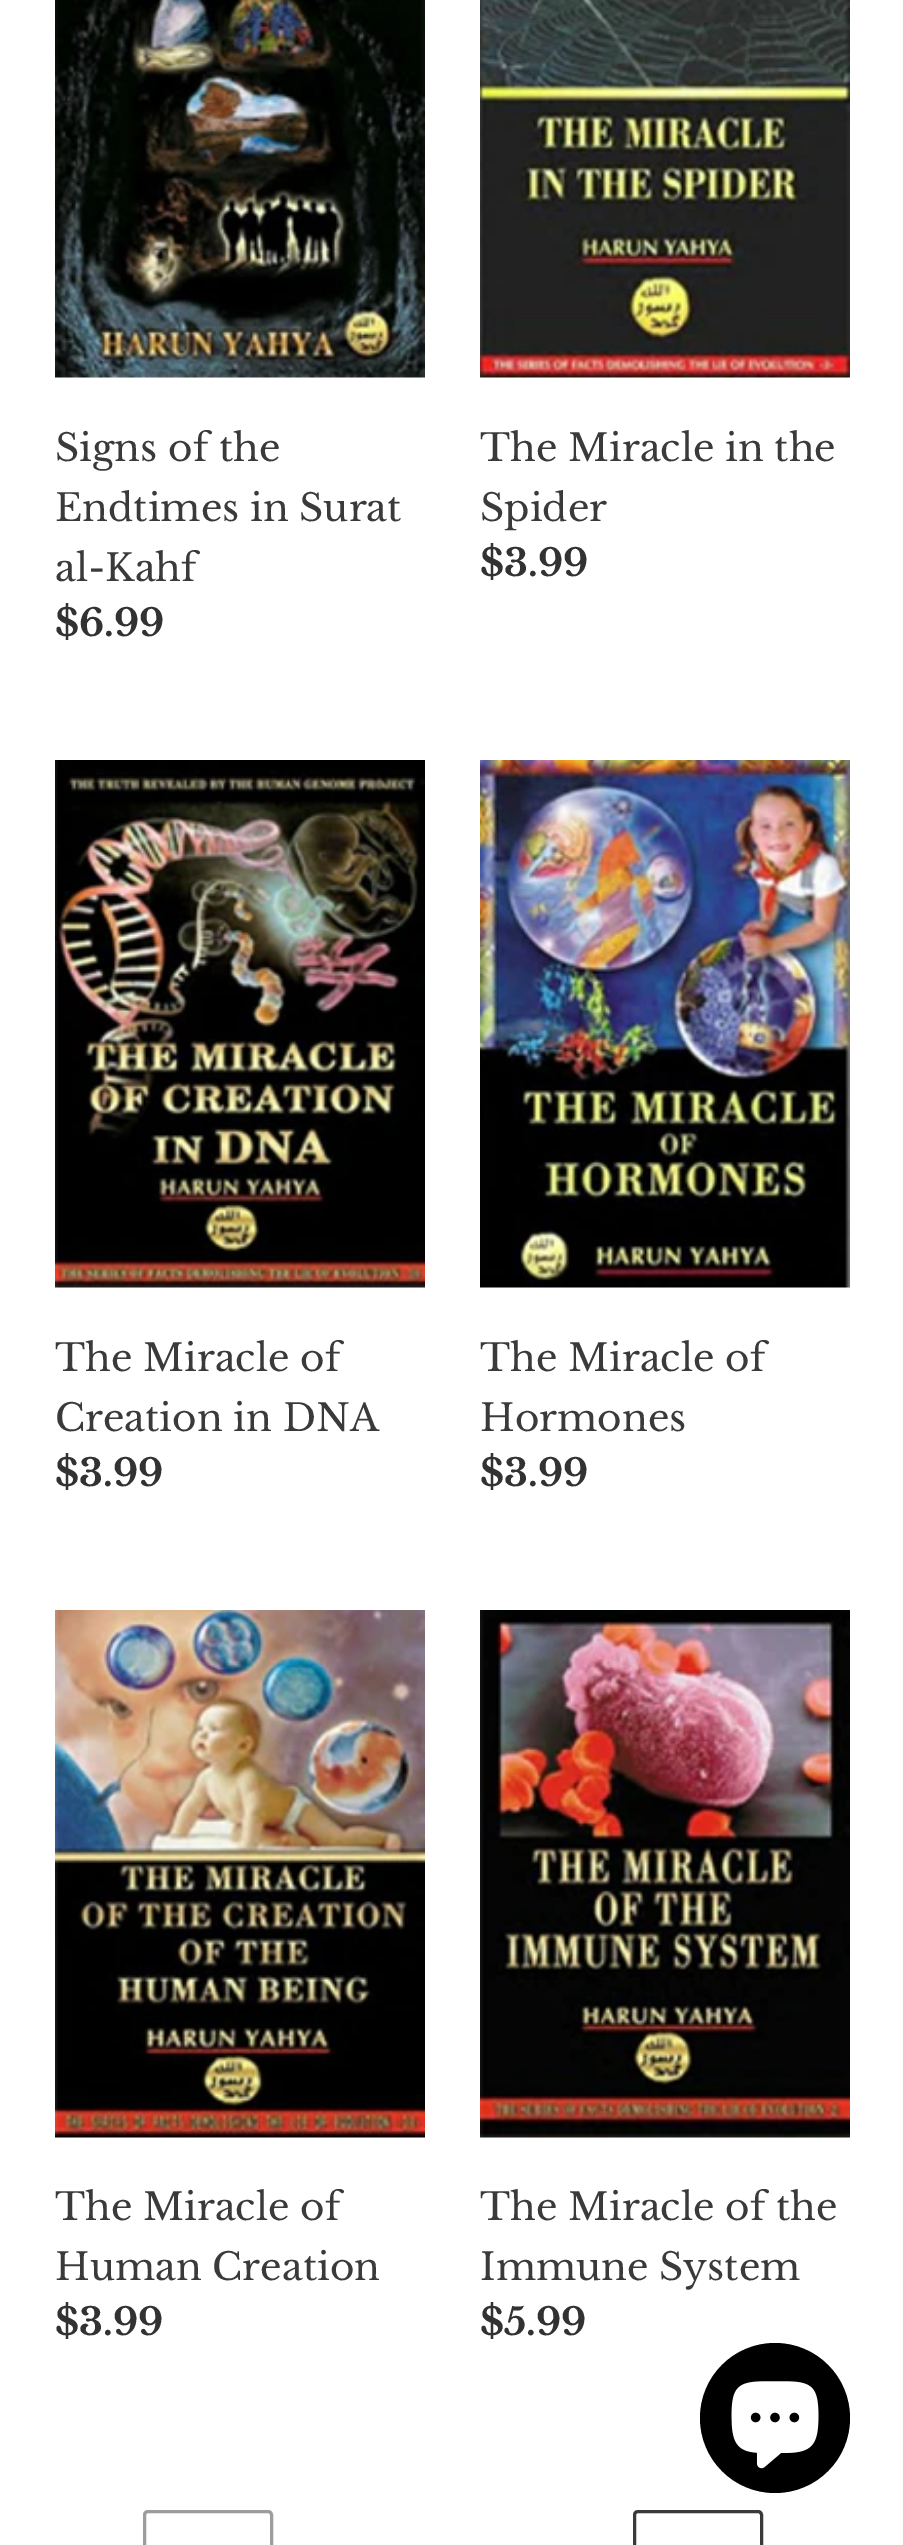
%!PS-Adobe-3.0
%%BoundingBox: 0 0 903 2545
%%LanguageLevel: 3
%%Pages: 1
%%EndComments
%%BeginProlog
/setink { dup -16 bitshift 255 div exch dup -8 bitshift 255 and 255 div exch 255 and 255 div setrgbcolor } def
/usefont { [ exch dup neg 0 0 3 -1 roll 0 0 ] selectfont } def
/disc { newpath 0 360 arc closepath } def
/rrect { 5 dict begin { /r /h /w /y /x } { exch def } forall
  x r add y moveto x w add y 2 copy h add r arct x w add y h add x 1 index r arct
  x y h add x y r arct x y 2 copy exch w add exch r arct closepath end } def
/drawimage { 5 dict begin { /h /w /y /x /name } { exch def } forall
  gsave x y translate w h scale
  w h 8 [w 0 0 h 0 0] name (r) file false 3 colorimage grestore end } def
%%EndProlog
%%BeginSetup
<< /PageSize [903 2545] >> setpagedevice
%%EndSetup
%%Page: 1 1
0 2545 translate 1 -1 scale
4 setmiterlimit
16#FFFFFF setink
0 0 903 2545 rectfill
(img1.raw) 55 0 370 378 drawimage
/LibreBaskerville-Regular 37.5 usefont
16#3A3A3A setink
[
    [(Signs of the) 55 461]
    [(Endtimes in Surat) 55 521]
    [(al-Kahf) 55 581]
] { aload pop moveto show } forall
/LibreBaskerville-Bold 37.5 usefont
16#333232 setink
55 636 moveto ($6.99) show
(img2.raw) 480 0 370 378 drawimage
/LibreBaskerville-Regular 37.5 usefont
16#3A3A3A setink
480 461 moveto (The Miracle in the) show
480 521 moveto (Spider) show
/LibreBaskerville-Bold 37.5 usefont
16#333232 setink
480 576 moveto ($3.99) show
(img3.raw) 55 760 370 528 drawimage
/LibreBaskerville-Regular 37.5 usefont
16#3A3A3A setink
55 1371 moveto (The Miracle of) show
55 1431 moveto (Creation in DNA) show
/LibreBaskerville-Bold 37.5 usefont
16#333232 setink
55 1486 moveto ($3.99) show
(img4.raw) 480 760 370 528 drawimage
/LibreBaskerville-Regular 37.5 usefont
16#3A3A3A setink
480 1371 moveto (The Miracle of) show
480 1431 moveto (Hormones) show
/LibreBaskerville-Bold 37.5 usefont
16#333232 setink
480 1486 moveto ($3.99) show
(img5.raw) 55 1610 370 528 drawimage
/LibreBaskerville-Regular 37.5 usefont
16#3A3A3A setink
55 2220 moveto (The Miracle of) show
55 2280 moveto (Human Creation) show
/LibreBaskerville-Bold 37.5 usefont
16#333232 setink
55 2335 moveto ($3.99) show
(img6.raw) 480 1610 370 528 drawimage
/LibreBaskerville-Regular 37.5 usefont
16#3A3A3A setink
480 2220 moveto (The Miracle of the) show
480 2280 moveto (Immune System) show
/LibreBaskerville-Bold 37.5 usefont
16#333232 setink
480 2335 moveto ($5.99) show
16#9D9D9D setink
3 setlinewidth
144.5 2511.5 127 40 3.5 rrect stroke
16#3A3A3A setink
634.5 2511.5 127 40 3.5 rrect stroke
16#000000 setink
775 2418 75 disc fill
(img7.raw) 731 2381 88 88 drawimage
showpage
%%EOF
